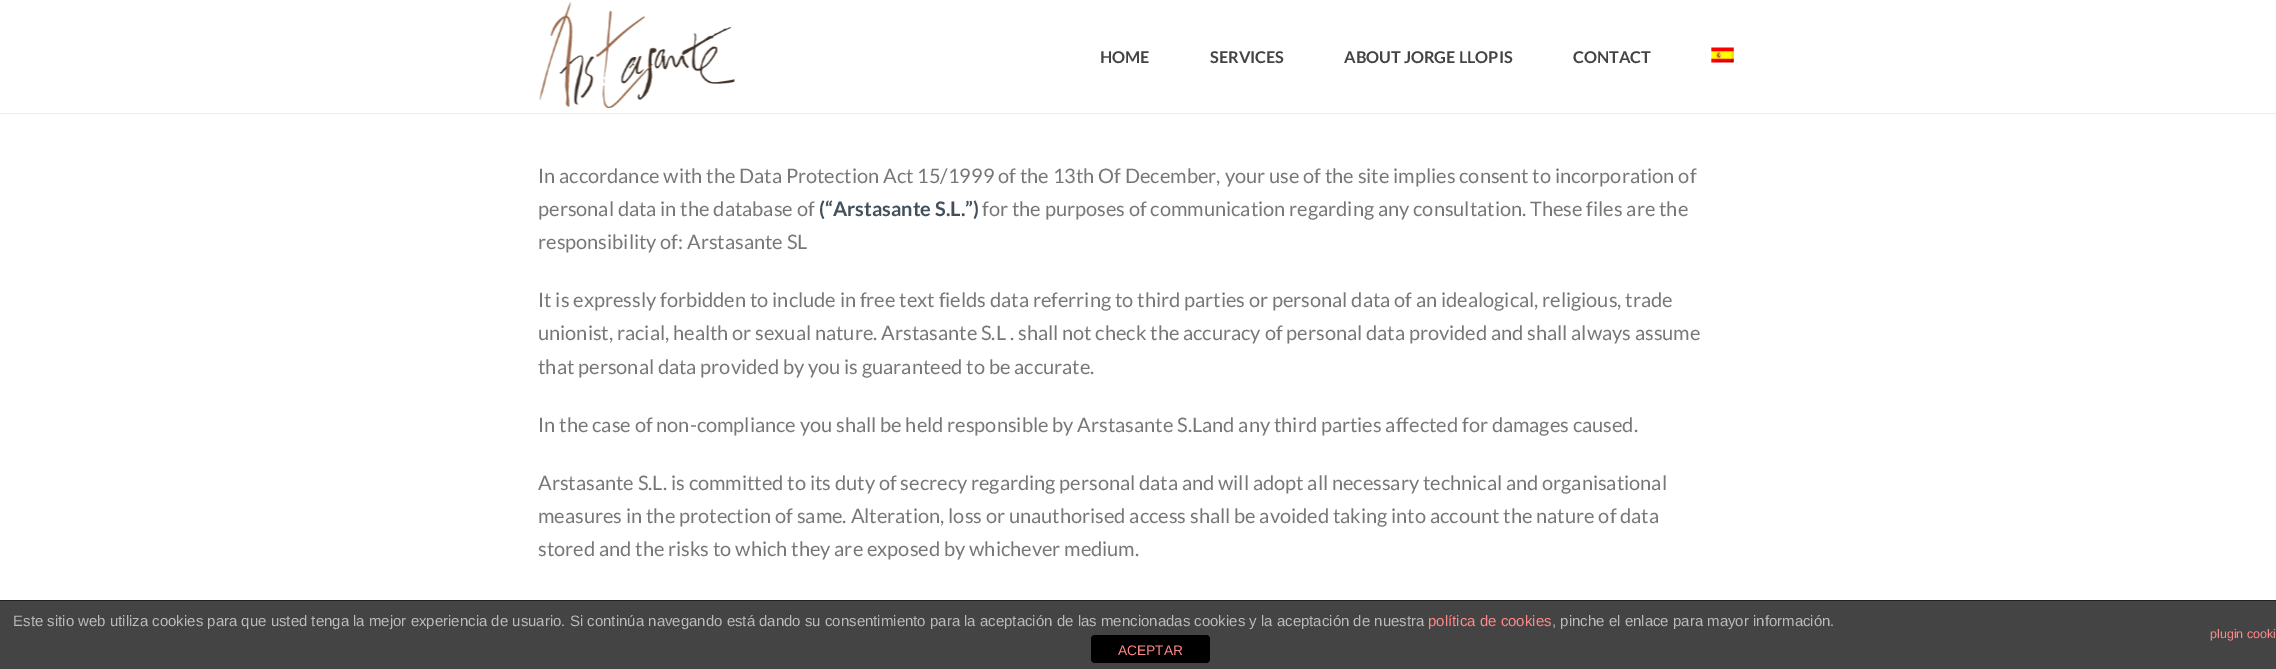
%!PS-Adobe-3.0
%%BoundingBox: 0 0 2276 669
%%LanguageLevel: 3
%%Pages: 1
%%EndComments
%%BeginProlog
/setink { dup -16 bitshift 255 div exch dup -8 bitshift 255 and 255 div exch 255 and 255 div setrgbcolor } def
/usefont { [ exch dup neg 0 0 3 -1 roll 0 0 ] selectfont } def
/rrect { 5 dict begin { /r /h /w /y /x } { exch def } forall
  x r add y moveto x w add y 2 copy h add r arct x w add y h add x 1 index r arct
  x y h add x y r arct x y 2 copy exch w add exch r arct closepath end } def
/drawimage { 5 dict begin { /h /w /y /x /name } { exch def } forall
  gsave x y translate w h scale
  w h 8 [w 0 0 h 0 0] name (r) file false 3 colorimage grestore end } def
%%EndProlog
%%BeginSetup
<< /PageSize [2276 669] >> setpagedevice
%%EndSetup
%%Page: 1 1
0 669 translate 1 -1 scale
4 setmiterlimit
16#FFFFFF setink
0 0 2276 669 rectfill
16#EDEDED setink
0 113 2276 1 rectfill
(img1.raw) 539 2 197 107 drawimage
/Lato-Bold 16.25 usefont
16#444444 setink
[
    [(HOME) 1100 63]
    [(SERVICES) 1210 63]
    [(ABOUT JORGE LLOPIS) 1344 63]
    [(CONTACT) 1573 63]
] { aload pop moveto show } forall
(img2.raw) 1711 47 23 16 drawimage
/Lato-Regular 20 usefont
16#777777 setink
538 183 moveto (In accordance with the Data Protection Act 15/1999 of the 13th Of December, your use of the site implies consent to incorporation of) show
538 216 moveto (personal data in the database of) show
/Lato-Bold 20 usefont
16#43505B setink
819 216 moveto (\(“Arstasante S.L.”\)) show
/Lato-Regular 20 usefont
16#777777 setink
[
    [(for the purposes of communication regarding any consultation. These files are the) 982 216]
    [(responsibility of: Arstasante SL) 538 249]
    [(It is expressly forbidden to include in free text fields data referring to third parties or personal data of an idealogical, religious, trade) 538 307]
    [(unionist, racial, health or sexual nature. Arstasante S.L . shall not check the accuracy of personal data provided and shall always assume) 538 340]
    [(that personal data provided by you is guaranteed to be accurate.) 538 374]
    [(In the case of non-compliance you shall be held responsible by Arstasante S.Land any third parties affected for damages caused.) 538 432]
    [(Arstasante S.L. is committed to its duty of secrecy regarding personal data and will adopt all necessary technical and organisational) 538 490]
    [(measures in the protection of same. Alteration, loss or unauthorised access shall be avoided taking into account the nature of data) 538 523]
    [(stored and the risks to which they are exposed by whichever medium.) 538 556]
] { aload pop moveto show } forall
16#444444 setink
0 601 2276 68 rectfill
16#222222 setink
0 600 2276 1 rectfill
/LiberationSans-Regular 15 usefont
16#BBBBBB setink
13 626 moveto (Este sitio web utiliza cookies para que usted tenga la mejor experiencia de usuario. Si continúa navegando está dando su consentimiento para la aceptación de las mencionadas cookies y la aceptación de nuestra) show
16#FF8888 setink
1428 626 moveto (política de cookies) show
16#BBBBBB setink
1552 626 moveto (, pinche el enlace para mayor información.) show
/LiberationSans-Regular 12.5 usefont
16#FF8888 setink
2210 638 moveto (plugin cooki) show
16#000000 setink
1091 635 119 28 4 rrect fill
/LiberationSans-Regular 13.75 usefont
16#FF8888 setink
1118 655 moveto (ACEPTAR) show
showpage
%%EOF
